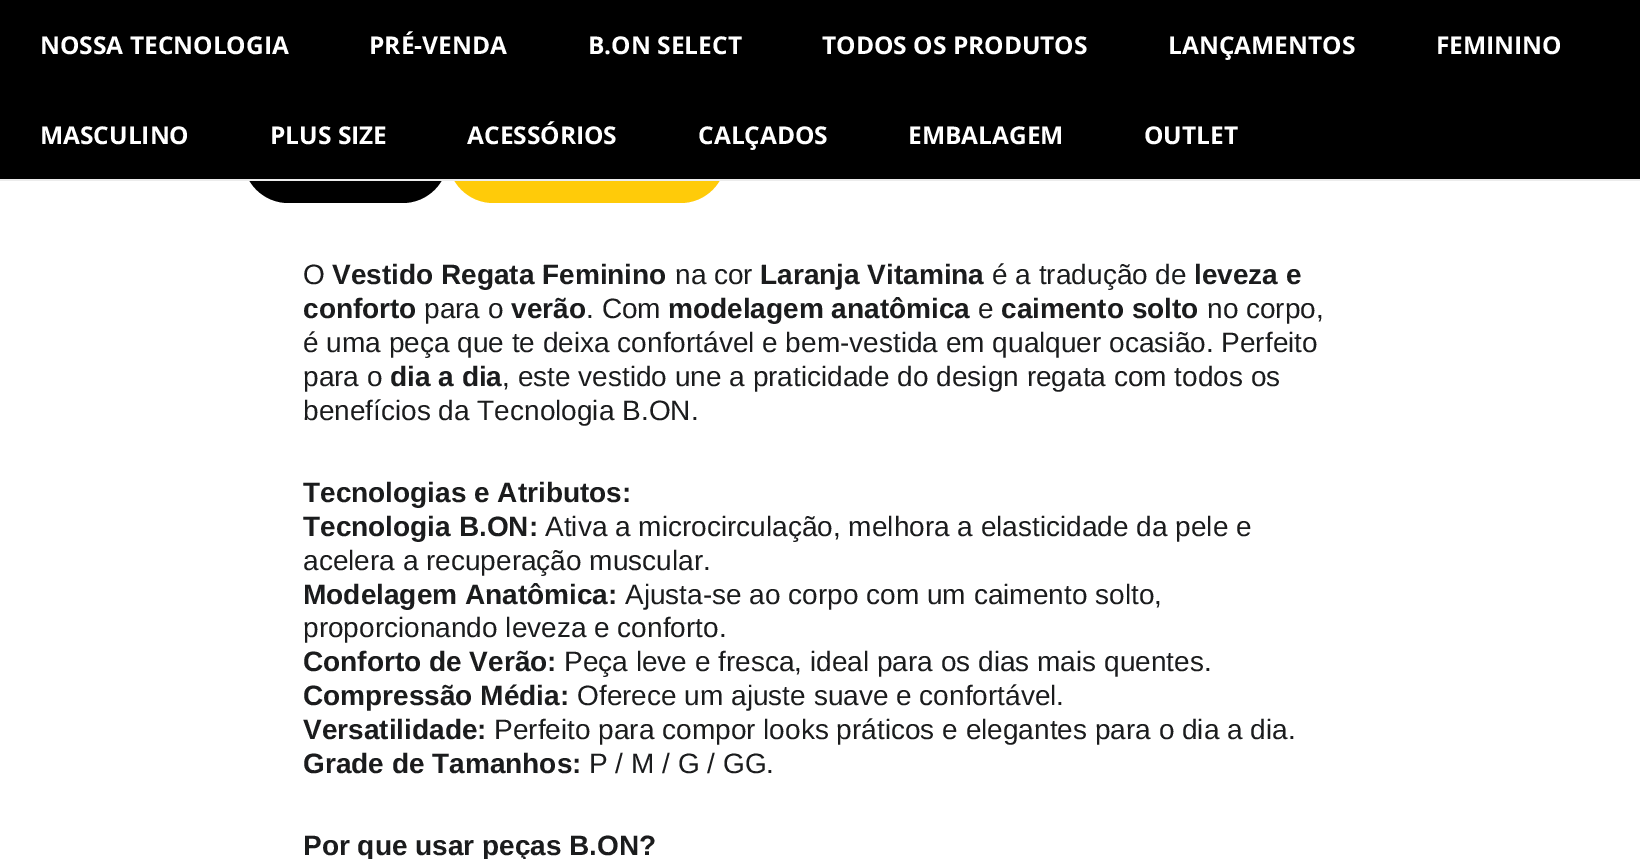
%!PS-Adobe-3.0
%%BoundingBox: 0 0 1640 859
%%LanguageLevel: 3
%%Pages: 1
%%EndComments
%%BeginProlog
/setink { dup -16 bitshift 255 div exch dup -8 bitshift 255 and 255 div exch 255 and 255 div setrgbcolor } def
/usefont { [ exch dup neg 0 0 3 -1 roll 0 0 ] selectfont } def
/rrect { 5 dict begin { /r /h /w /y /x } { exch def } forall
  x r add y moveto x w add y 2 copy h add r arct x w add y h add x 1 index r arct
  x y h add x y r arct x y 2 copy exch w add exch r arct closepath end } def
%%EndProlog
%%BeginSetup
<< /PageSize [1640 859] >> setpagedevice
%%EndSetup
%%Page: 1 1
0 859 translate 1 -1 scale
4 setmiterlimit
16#FFFFFF setink
0 0 1640 859 rectfill
16#000000 setink
243 112 205 91 45.5 rrect fill
16#FFCB09 setink
448 112 278 91 45.5 rrect fill
16#000000 setink
0 0 1640 179 rectfill
16#ECECEC setink
0 179 1640 2 rectfill
/OpenSans-Bold 24.5 usefont
16#FFFFFF setink
[
    [(NOSSA TECNOLOGIA) 40 54]
    [(PRÉ-VENDA) 369 54]
    [(B.ON SELECT) 588 54]
    [(TODOS OS PRODUTOS) 822 54]
    [(LANÇAMENTOS) 1168 54]
    [(FEMININO) 1436 54]
    [(MASCULINO) 40 144]
    [(PLUS SIZE) 270 144]
    [(ACESSÓRIOS) 467 144]
    [(CALÇADOS) 698 144]
    [(EMBALAGEM) 908 144]
    [(OUTLET) 1144 144]
] { aload pop moveto show } forall
/LiberationSans-Regular 28 usefont
16#1B1C1D setink
303 284 moveto (O) show
/LiberationSans-Bold 28 usefont
332 284 moveto (Vestido Regata Feminino) show
/LiberationSans-Regular 28 usefont
675 284 moveto (na cor) show
/LiberationSans-Bold 28 usefont
760 284 moveto (Laranja Vitamina) show
/LiberationSans-Regular 28 usefont
992 284 moveto (é a tradução de) show
/LiberationSans-Bold 28 usefont
1194 284 moveto (leveza e) show
303 318 moveto (conforto) show
/LiberationSans-Regular 28 usefont
424 318 moveto (para o) show
/LiberationSans-Bold 28 usefont
511 318 moveto (verão) show
/LiberationSans-Regular 28 usefont
586 318 moveto (. Com) show
/LiberationSans-Bold 28 usefont
668 318 moveto (modelagem anatômica) show
/LiberationSans-Regular 28 usefont
978 318 moveto (e) show
/LiberationSans-Bold 28 usefont
1001 318 moveto (caimento solto) show
/LiberationSans-Regular 28 usefont
[
    [(no corpo,) 1207 318]
    [(é uma peça que te deixa confortável e bem-vestida em qualquer ocasião. Perfeito) 303 352]
    [(para o) 303 386]
] { aload pop moveto show } forall
/LiberationSans-Bold 28 usefont
390 386 moveto (dia a dia) show
/LiberationSans-Regular 28 usefont
502 386 moveto (, este vestido une a praticidade do design regata com todos os) show
303 420 moveto (benefícios da Tecnologia B.ON.) show
/LiberationSans-Bold 28 usefont
303 502 moveto (Tecnologias e Atributos:) show
303 536 moveto (Tecnologia B.ON:) show
/LiberationSans-Regular 28 usefont
545 536 moveto (Ativa a microcirculação, melhora a elasticidade da pele e) show
303 570 moveto (acelera a recuperação muscular.) show
/LiberationSans-Bold 28 usefont
303 604 moveto (Modelagem Anatômica:) show
/LiberationSans-Regular 28 usefont
625 604 moveto (Ajusta-se ao corpo com um caimento solto,) show
303 637 moveto (proporcionando leveza e conforto.) show
/LiberationSans-Bold 28 usefont
303 671 moveto (Conforto de Verão:) show
/LiberationSans-Regular 28 usefont
564 671 moveto (Peça leve e fresca, ideal para os dias mais quentes.) show
/LiberationSans-Bold 28 usefont
303 705 moveto (Compressão Média:) show
/LiberationSans-Regular 28 usefont
577 705 moveto (Oferece um ajuste suave e confortável.) show
/LiberationSans-Bold 28 usefont
303 739 moveto (Versatilidade:) show
/LiberationSans-Regular 28 usefont
494 739 moveto (Perfeito para compor looks práticos e elegantes para o dia a dia.) show
/LiberationSans-Bold 28 usefont
303 773 moveto (Grade de Tamanhos:) show
/LiberationSans-Regular 28 usefont
589 773 moveto (P / M / G / GG.) show
/LiberationSans-Bold 28 usefont
303 855 moveto (Por que usar peças B.ON?) show
showpage
%%EOF
